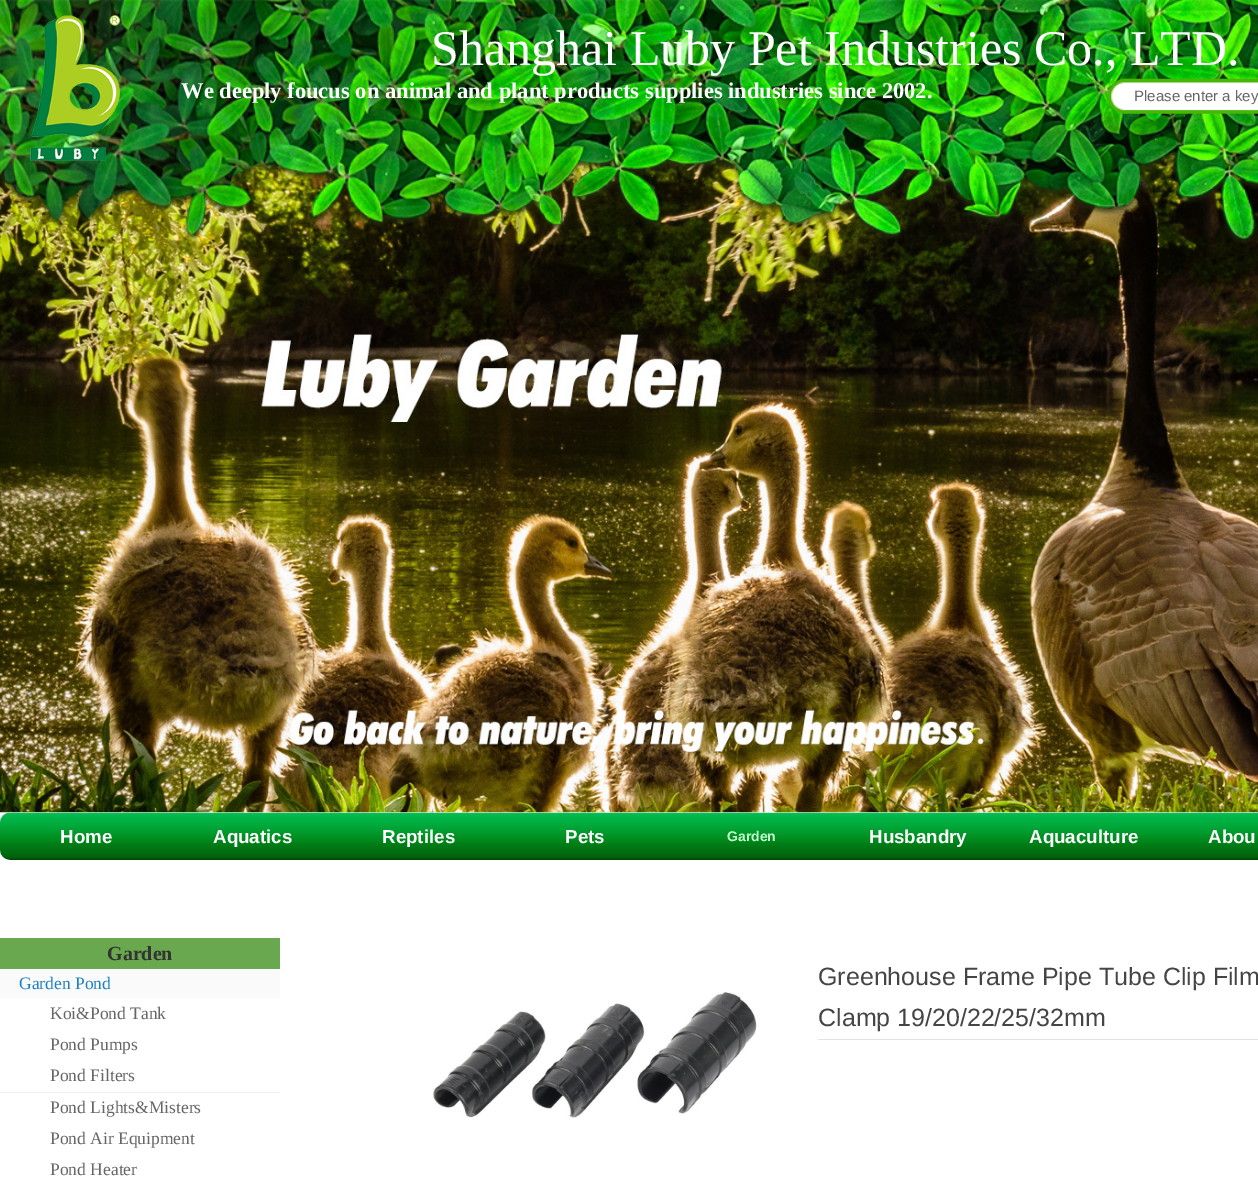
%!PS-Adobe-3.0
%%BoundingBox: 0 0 1258 1181
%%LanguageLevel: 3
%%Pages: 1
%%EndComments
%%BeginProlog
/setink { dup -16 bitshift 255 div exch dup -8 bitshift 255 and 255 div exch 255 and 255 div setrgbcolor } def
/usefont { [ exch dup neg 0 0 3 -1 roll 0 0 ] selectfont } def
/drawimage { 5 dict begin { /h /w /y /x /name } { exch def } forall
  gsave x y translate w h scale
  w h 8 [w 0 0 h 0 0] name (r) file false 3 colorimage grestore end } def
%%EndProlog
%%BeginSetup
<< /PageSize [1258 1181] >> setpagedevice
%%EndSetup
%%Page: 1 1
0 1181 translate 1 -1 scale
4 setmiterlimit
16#FFFFFF setink
0 0 1258 1181 rectfill
(img4.raw) 0 125 1258 688 drawimage
(img1.raw) 0 0 1258 244 drawimage
(img2.raw) 30 14 91 147 drawimage
/LiberationSerif-Regular 50 usefont
431 65 moveto (Shanghai Luby Pet Industries Co., LTD.) show
/LiberationSerif-Bold 22.5 usefont
181 98 moveto (We deeply foucus on animal and plant products supplies industries since 2002.) show
(img3.raw) 1107 78 151 36 drawimage
/LiberationSans-Regular 15 usefont
16#666666 setink
1134 101 moveto (Please enter a key) show
(img5.raw) 0 812 1258 48 drawimage
/LiberationSans-Bold 18.75 usefont
16#FFFFFF setink
[
    [(Home) 60 843]
    [(Aquatics) 213 843]
    [(Reptiles) 382 843]
    [(Pets) 565 843]
] { aload pop moveto show } forall
/LiberationSans-Bold 14 usefont
16#C3FFCE setink
727 841 moveto (Garden) show
/LiberationSans-Bold 18.75 usefont
16#FFFFFF setink
[
    [(Husbandry) 869 843]
    [(Aquaculture) 1029 843]
    [(Abou) 1208 843]
] { aload pop moveto show } forall
16#6AA84F setink
0 938 280 31 rectfill
/LiberationSerif-Bold 20 usefont
16#333333 setink
107 960 moveto (Garden) show
16#FAFAFA setink
0 970 280 28 rectfill
/LiberationSerif-Regular 17.5 usefont
16#1B81C4 setink
19 989 moveto (Garden Pond) show
16#666666 setink
50 1019 moveto (Koi&Pond Tank) show
50 1050 moveto (Pond Pumps) show
16#F0F0F0 setink
0 1092 280 1 rectfill
16#666666 setink
[
    [(Pond Filters) 50 1081]
    [(Pond Lights&Misters) 50 1113]
    [(Pond Air Equipment) 50 1144]
    [(Pond Heater) 50 1175]
] { aload pop moveto show } forall
(img6.raw) 433 992 324 126 drawimage
16#E2E2E2 setink
818 1039 440 1 rectfill
/LiberationSans-Regular 25 usefont
16#454545 setink
818 985 moveto (Greenhouse Frame Pipe Tube Clip Film) show
818 1026 moveto (Clamp 19/20/22/25/32mm) show
showpage
%%EOF
